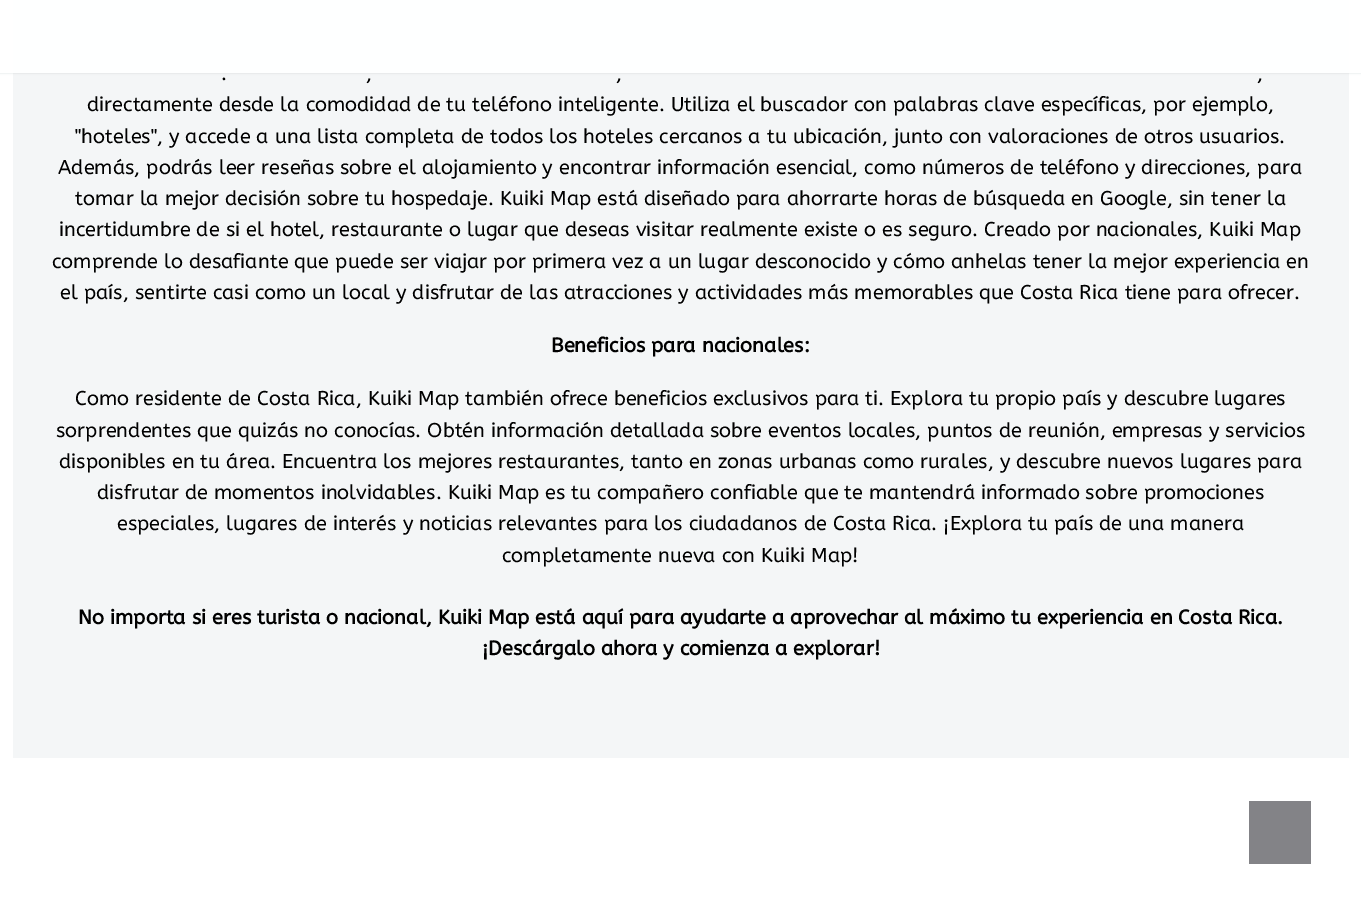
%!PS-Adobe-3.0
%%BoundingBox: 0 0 1361 907
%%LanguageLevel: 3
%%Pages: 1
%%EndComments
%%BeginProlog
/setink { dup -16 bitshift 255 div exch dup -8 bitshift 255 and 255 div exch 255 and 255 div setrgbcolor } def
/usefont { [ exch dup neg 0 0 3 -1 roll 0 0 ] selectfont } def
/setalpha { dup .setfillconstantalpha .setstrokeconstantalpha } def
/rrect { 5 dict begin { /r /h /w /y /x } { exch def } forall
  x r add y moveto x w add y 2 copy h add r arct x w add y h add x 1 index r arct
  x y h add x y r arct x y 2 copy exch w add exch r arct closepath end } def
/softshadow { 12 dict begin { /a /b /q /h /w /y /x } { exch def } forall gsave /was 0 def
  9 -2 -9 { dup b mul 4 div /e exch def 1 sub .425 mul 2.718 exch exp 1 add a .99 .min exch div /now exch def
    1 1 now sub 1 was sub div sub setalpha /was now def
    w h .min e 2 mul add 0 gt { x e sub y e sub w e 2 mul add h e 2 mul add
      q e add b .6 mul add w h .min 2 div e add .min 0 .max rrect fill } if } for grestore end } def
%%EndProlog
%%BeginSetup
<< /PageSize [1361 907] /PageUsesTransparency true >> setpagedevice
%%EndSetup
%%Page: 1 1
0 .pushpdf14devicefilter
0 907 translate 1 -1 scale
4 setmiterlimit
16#FFFFFF setink
0 0 1361 907 rectfill
16#F4F6F7 setink
13 0 1336 758 rectfill
gsave
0 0 moveto 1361 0 lineto 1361 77 lineto 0 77 lineto closepath 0 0 moveto 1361 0 lineto 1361 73 lineto 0 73 lineto closepath eoclip newpath
16#384554 setink
0 0 1361 73 0 1 0.2 softshadow
grestore
0.95 setalpha
16#FFFFFF setink
0 0 1361 73 rectfill
/ABeeZee-Regular 20 usefont
1 setalpha
16#000000 setink
[
    [(.) 221 80]
    [(,) 366 80]
    [(,) 616 80]
    [(,) 1257 80]
    [(directamente desde la comodidad de tu teléfono inteligente. Utiliza el buscador con palabras clave específicas, por ejemplo,) 87 111]
    [("hoteles", y accede a una lista completa de todos los hoteles cercanos a tu ubicación, junto con valoraciones de otros usuarios.) 75 143]
    [(Además, podrás leer reseñas sobre el alojamiento y encontrar información esencial, como números de teléfono y direcciones, para) 58 174]
    [(tomar la mejor decisión sobre tu hospedaje. Kuiki Map está diseñado para ahorrarte horas de búsqueda en Google, sin tener la) 75 205]
    [(incertidumbre de si el hotel, restaurante o lugar que deseas visitar realmente existe o es seguro. Creado por nacionales, Kuiki Map) 59 236]
    [(comprende lo desafiante que puede ser viajar por primera vez a un lugar desconocido y cómo anhelas tener la mejor experiencia en) 52 268]
    [(el país, sentirte casi como un local y disfrutar de las atracciones y actividades más memorables que Costa Rica tiene para ofrecer.) 60 299]
] { aload pop moveto show } forall
/ABeeZee-Bold 20 usefont
551 352 moveto (Beneficios para nacionales:) show
/ABeeZee-Regular 20 usefont
[
    [(Como residente de Costa Rica, Kuiki Map también ofrece beneficios exclusivos para ti. Explora tu propio país y descubre lugares) 75 405]
    [(sorprendentes que quizás no conocías. Obtén información detallada sobre eventos locales, puntos de reunión, empresas y servicios) 56 437]
    [(disponibles en tu área. Encuentra los mejores restaurantes, tanto en zonas urbanas como rurales, y descubre nuevos lugares para) 59 468]
    [(disfrutar de momentos inolvidables. Kuiki Map es tu compañero confiable que te mantendrá informado sobre promociones) 97 499]
    [(especiales, lugares de interés y noticias relevantes para los ciudadanos de Costa Rica. ¡Explora tu país de una manera) 117 530]
    [(completamente nueva con Kuiki Map!) 502 562]
] { aload pop moveto show } forall
/ABeeZee-Bold 20 usefont
78 624 moveto (No importa si eres turista o nacional, Kuiki Map está aquí para ayudarte a aprovechar al máximo tu experiencia en Costa Rica.) show
482 655 moveto (¡Descárgalo ahora y comienza a explorar!) show
16#838387 setink
1249 801 62 63 rectfill
.poppdf14devicefilter showpage
%%EOF
